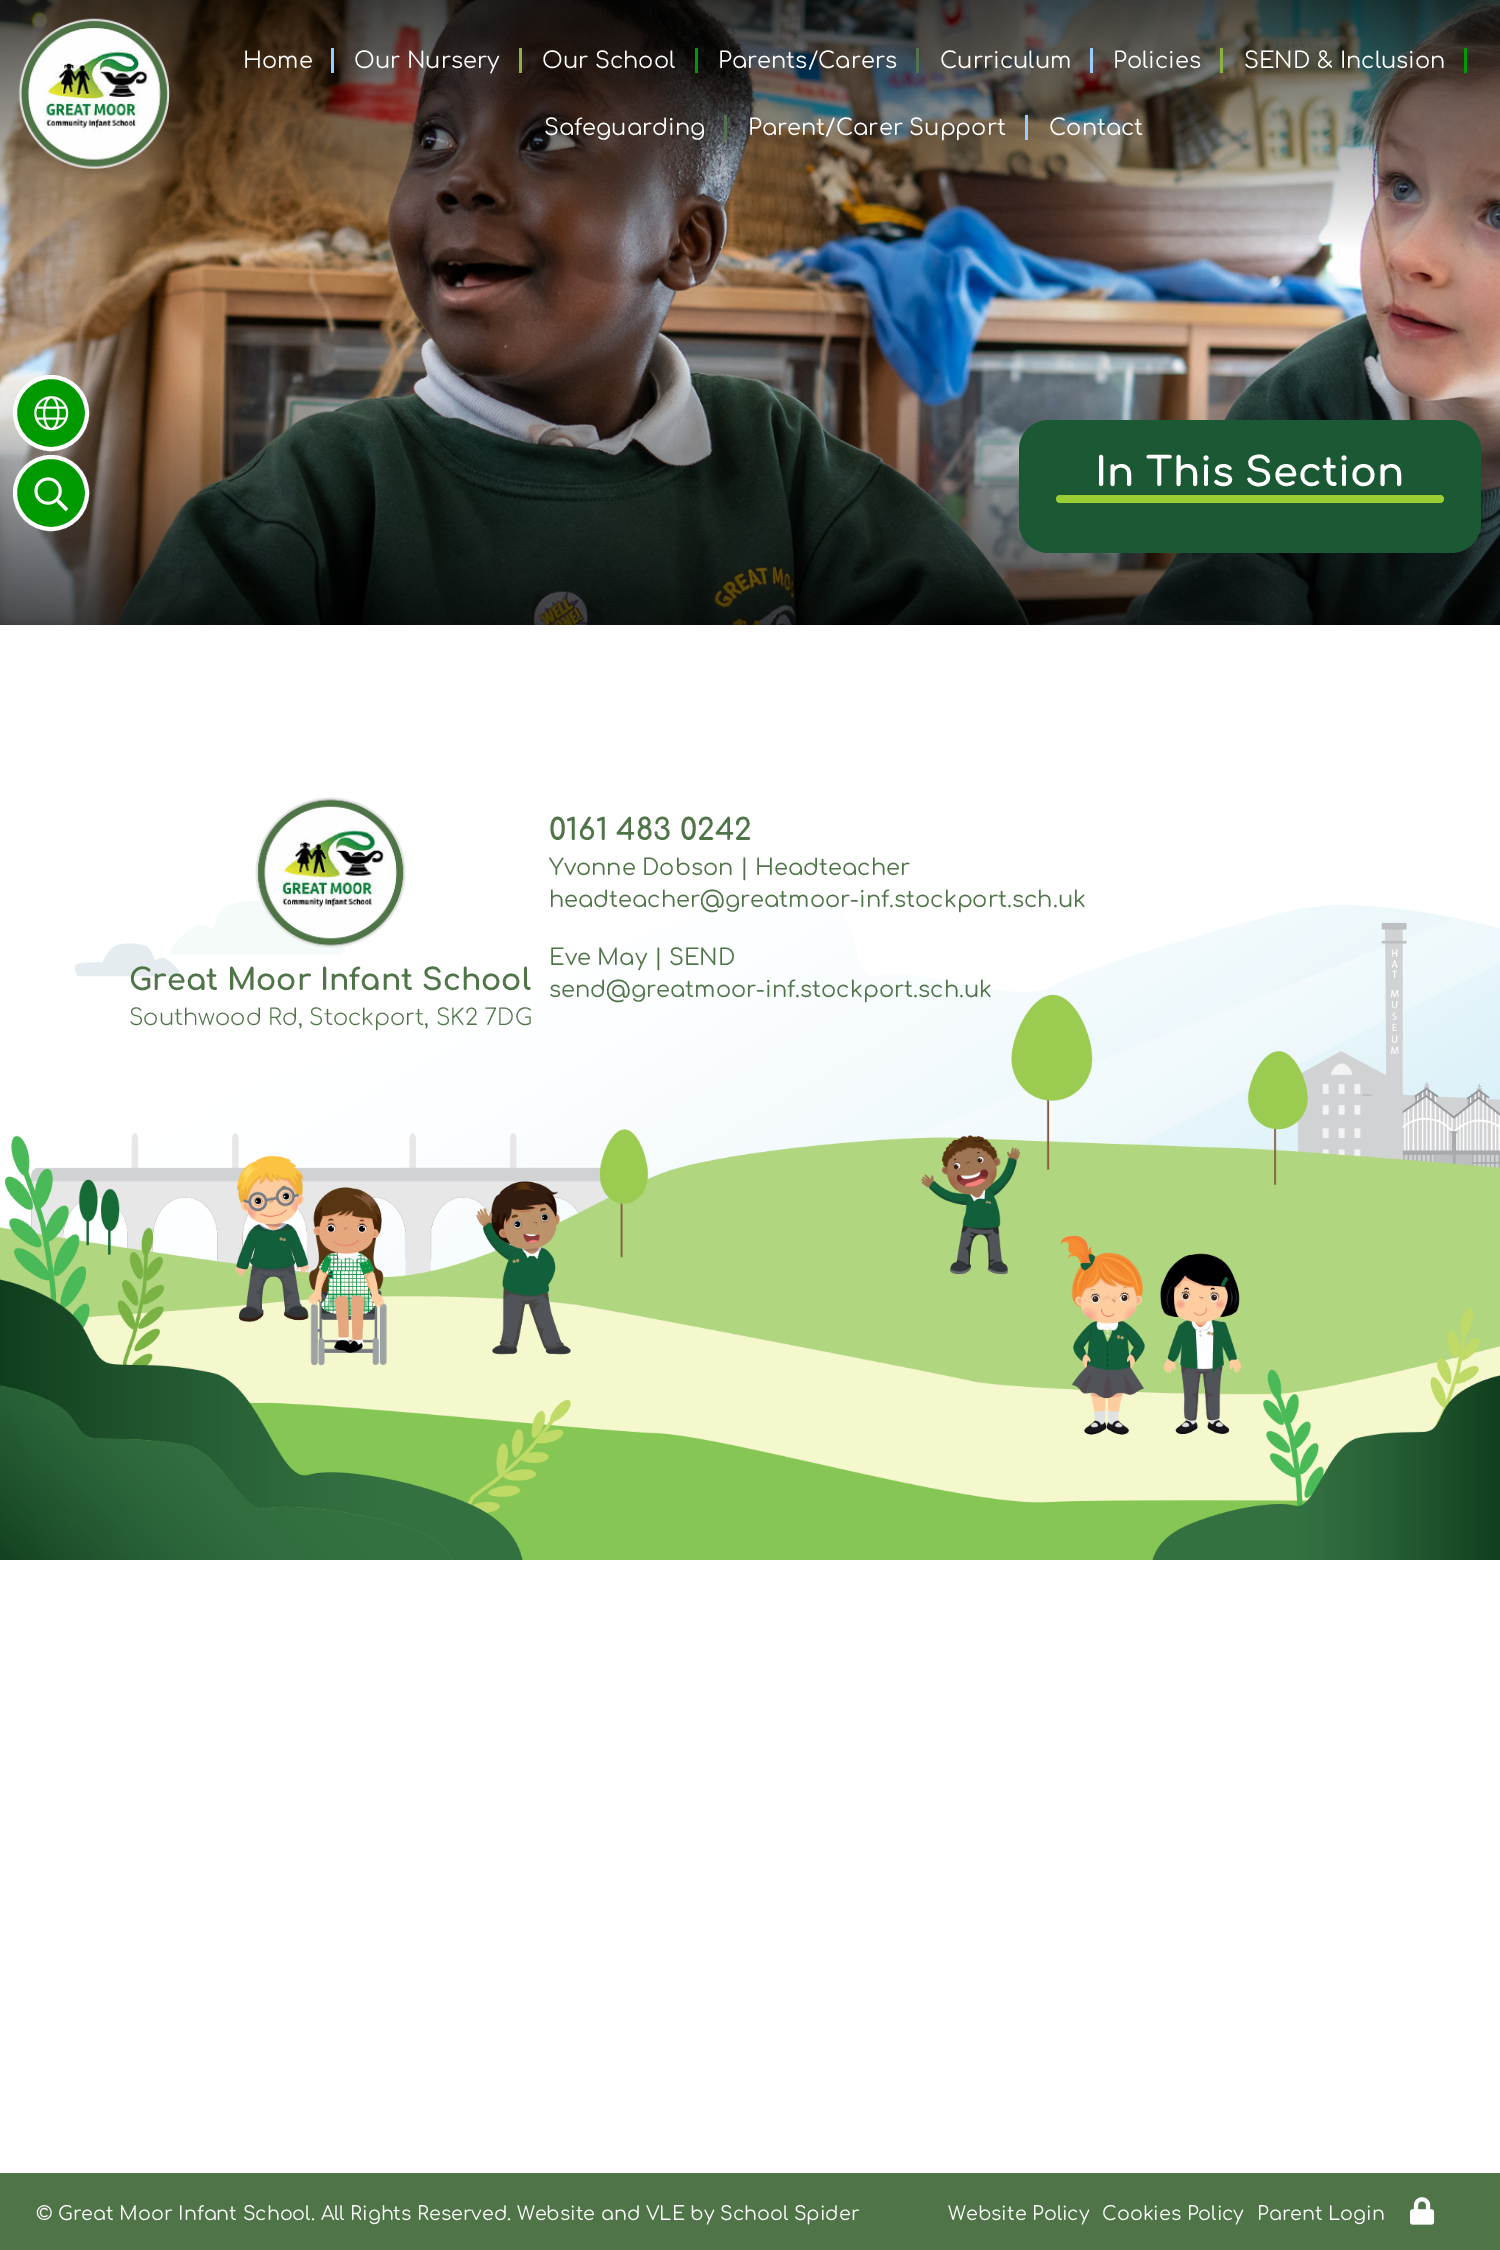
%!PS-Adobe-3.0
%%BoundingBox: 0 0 1500 2250
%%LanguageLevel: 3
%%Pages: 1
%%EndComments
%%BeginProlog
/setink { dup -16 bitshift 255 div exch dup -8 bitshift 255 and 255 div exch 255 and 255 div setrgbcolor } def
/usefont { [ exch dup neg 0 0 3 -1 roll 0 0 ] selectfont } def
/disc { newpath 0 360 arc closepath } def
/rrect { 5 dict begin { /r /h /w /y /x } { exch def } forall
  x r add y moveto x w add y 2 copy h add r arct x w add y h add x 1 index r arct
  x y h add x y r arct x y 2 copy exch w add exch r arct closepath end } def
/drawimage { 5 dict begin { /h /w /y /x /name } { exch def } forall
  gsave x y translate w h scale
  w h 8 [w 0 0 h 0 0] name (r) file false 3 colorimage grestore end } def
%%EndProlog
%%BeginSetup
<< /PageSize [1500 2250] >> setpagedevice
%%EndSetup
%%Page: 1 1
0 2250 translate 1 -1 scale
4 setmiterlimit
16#FFFFFF setink
0 0 1500 2250 rectfill
(img1.raw) 0 0 1500 625 drawimage
16#009900 setink
51 413 36 disc gsave fill grestore
16#FFFFFF setink
4 setlinewidth
stroke
(img2.raw) 34 396 35 35 drawimage
16#009900 setink
51 493 36 disc gsave fill grestore
16#FFFFFF setink
stroke
(img3.raw) 34 477 35 35 drawimage
(img4.raw) 18 18 152 151 drawimage
/Comfortaa-Regular 22.5 usefont
243 68 moveto (Home) show
16#99CCFF setink
331 48 3 25 rectfill
16#FFFFFF setink
354 68 moveto (Our Nursery) show
16#8BB13E setink
519 48 3 25 rectfill
16#FFFFFF setink
542 68 moveto (Our School) show
16#009900 setink
695 48 3 25 rectfill
16#FFFFFF setink
718 68 moveto (Parents/Carers) show
16#55714E setink
916 48 3 25 rectfill
16#FFFFFF setink
940 68 moveto (Curriculum) show
16#99CCFF setink
1090 48 3 25 rectfill
16#FFFFFF setink
1113 68 moveto (Policies) show
16#8BB13E setink
1220 48 3 25 rectfill
16#FFFFFF setink
1244 68 moveto (SEND & Inclusion) show
16#009900 setink
1464 48 3 25 rectfill
16#FFFFFF setink
544 135 moveto (Safeguarding) show
16#55714E setink
724 115 3 25 rectfill
16#FFFFFF setink
748 135 moveto (Parent/Carer Support) show
16#99CCFF setink
1025 115 3 25 rectfill
16#FFFFFF setink
1049 135 moveto (Contact) show
16#1B5834 setink
1019 420 462 133 30 rrect fill
/Comfortaa-Bold 40 usefont
16#FFFFFF setink
1095 486 moveto (In This Section) show
16#99CD33 setink
1056 495 388 8 4 rrect fill
(img5.raw) 0 901 1500 659 drawimage
(img6.raw) 255 797 151 151 drawimage
/Comfortaa-Bold 30 usefont
16#4F7448 setink
129 990 moveto (Great Moor Infant School) show
/Comfortaa-Light 22.5 usefont
129 1025 moveto (Southwood Rd, Stockport, SK2 7DG) show
/Comfortaa-Bold 30 usefont
549 840 moveto (0161 483 0242) show
/Comfortaa-Regular 22.5 usefont
[
    [(Yvonne Dobson | Headteacher) 549 875]
    [(headteacher@greatmoor-inf.stockport.sch.uk) 549 907]
    [(Eve May | SEND) 549 965]
    [(send@greatmoor-inf.stockport.sch.uk) 549 997]
] { aload pop moveto show } forall
16#4F7447 setink
0 2173 1500 77 rectfill
/Comfortaa-Regular 19.1 usefont
16#FFFFFF setink
[
    [(© Great Moor Infant School. All Rights Reserved. Website and VLE by School Spider) 36 2220]
    [(Website Policy) 948 2220]
    [(Cookies Policy) 1102 2220]
    [(Parent Login) 1257 2220]
] { aload pop moveto show } forall
(img7.raw) 1410 2197 25 28 drawimage
showpage
%%EOF
